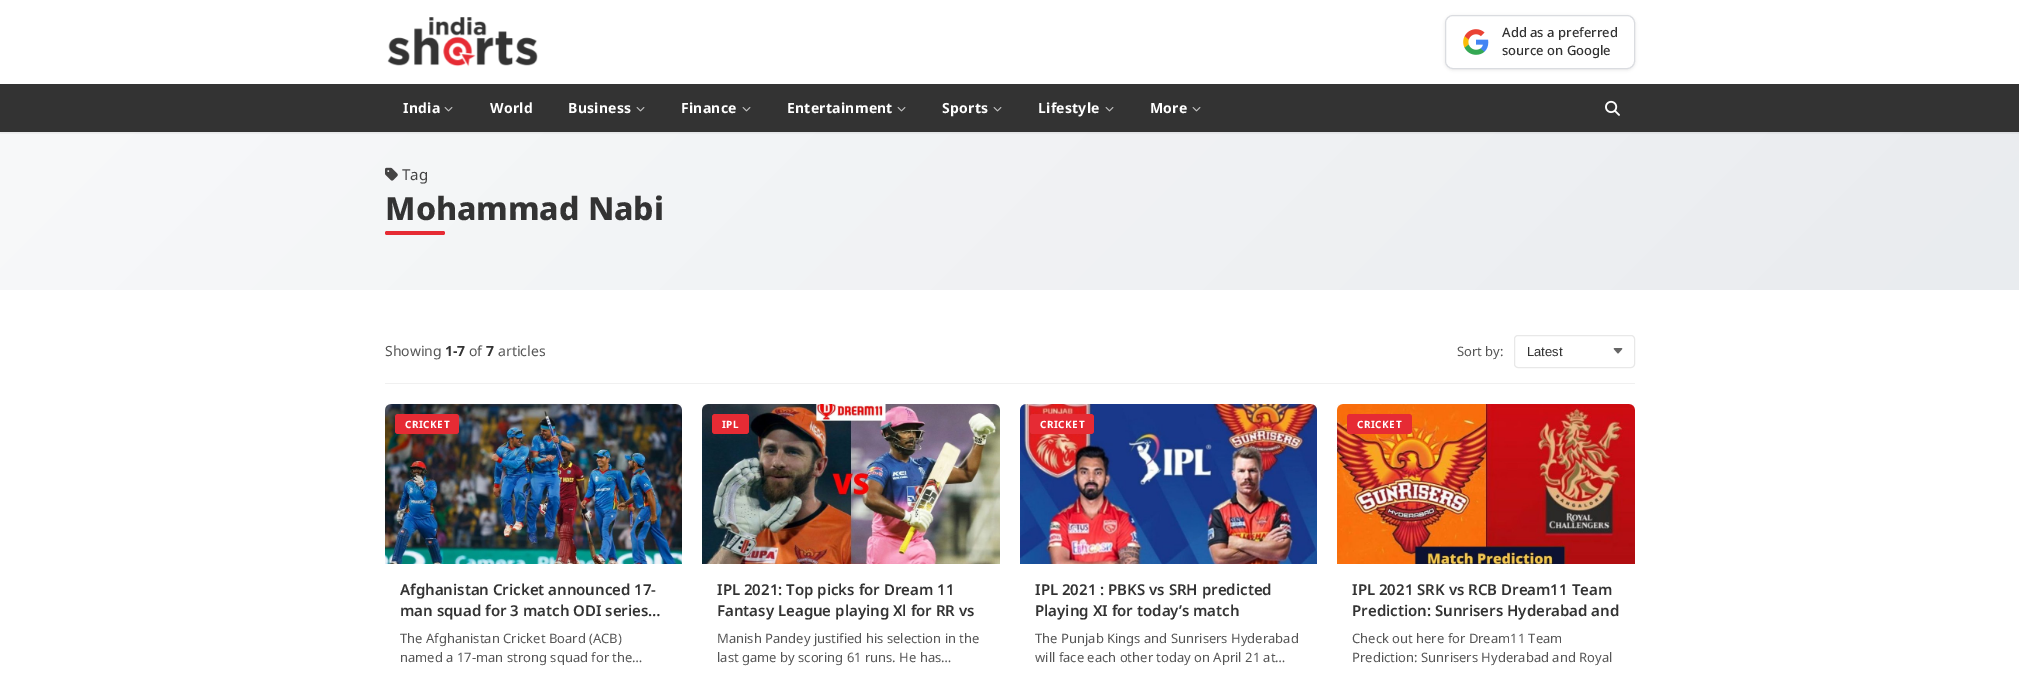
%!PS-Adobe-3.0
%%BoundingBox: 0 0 2019 686
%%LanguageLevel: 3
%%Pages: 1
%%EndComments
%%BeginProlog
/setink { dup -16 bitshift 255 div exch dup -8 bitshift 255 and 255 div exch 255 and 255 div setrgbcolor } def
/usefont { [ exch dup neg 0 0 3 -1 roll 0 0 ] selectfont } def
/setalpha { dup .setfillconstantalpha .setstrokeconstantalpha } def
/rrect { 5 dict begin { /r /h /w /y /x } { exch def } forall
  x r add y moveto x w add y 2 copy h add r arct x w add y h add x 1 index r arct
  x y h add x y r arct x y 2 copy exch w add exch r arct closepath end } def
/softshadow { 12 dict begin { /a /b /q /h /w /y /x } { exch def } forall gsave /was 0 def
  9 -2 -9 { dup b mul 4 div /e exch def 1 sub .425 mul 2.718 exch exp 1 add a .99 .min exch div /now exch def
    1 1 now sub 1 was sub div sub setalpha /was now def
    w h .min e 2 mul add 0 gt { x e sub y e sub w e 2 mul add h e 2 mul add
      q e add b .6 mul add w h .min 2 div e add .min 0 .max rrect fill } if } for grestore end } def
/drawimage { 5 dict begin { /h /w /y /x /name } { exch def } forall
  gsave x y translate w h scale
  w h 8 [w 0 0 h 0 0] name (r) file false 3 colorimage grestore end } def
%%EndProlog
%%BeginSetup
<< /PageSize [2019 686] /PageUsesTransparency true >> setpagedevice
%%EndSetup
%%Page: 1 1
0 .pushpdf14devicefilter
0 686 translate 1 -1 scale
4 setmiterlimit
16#FFFFFF setink
0 0 2019 686 rectfill
gsave 0 132 moveto 2019 132 lineto 2019 290 lineto 0 290 lineto closepath clip newpath
<< /ShadingType 2 /ColorSpace /DeviceRGB /Coords [465 -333 1554 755] /Extend [true true] /Function << /FunctionType 2 /Domain [0 1] /C0 [0.973 0.976 0.98] /C1 [0.914 0.925 0.937] /N 1 >> >> shfill grestore
gsave
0 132 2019 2 rectclip
16#000000 setink
0 1 2019 132 0 1.5 0.08 softshadow
grestore
(img1.raw) 387 17 151 50 drawimage
16#000000 setink
1445 16 190 54 8 1.5 0.08 softshadow
16#FFFFFF setink
1445.5 15.5 189 53 7.5 rrect gsave fill grestore
16#DADCE0 setink
stroke
(img2.raw) 1463 29 26 26 drawimage
/NotoSans-Medium 13 usefont
16#333333 setink
1502 37 moveto (Add as a preferred) show
1502 55 moveto (source on Google) show
0 84 2019 48 rectfill
/NotoSans-Bold 14 usefont
16#FFFFFF setink
403 113 moveto 0.25 0 (India) ashow
(img3.raw) 444 107 9 5 drawimage
490 113 moveto 0.25 0 (World) ashow
568 113 moveto 0.25 0 (Business) ashow
(img3.raw) 636 107 9 5 drawimage
681 113 moveto 0.25 0 (Finance) ashow
(img3.raw) 742 107 9 5 drawimage
787 113 moveto 0.25 0 (Entertainment) ashow
(img3.raw) 897 107 9 5 drawimage
942 113 moveto 0.25 0 (Sports) ashow
(img3.raw) 993 107 9 5 drawimage
1038 113 moveto 0.25 0 (Lifestyle) ashow
(img3.raw) 1105 107 9 5 drawimage
1150 113 moveto 0.25 0 (More) ashow
(img3.raw) 1192 107 9 5 drawimage
(img4.raw) 1605 100 15 16 drawimage
(img5.raw) 385 167 13 14 drawimage
/NotoSans-Regular 15 usefont
16#444444 setink
402 180 moveto (Tag) show
/NotoSans-ExtraBold 32 usefont
16#333333 setink
385 220 moveto (Mohammad Nabi) show
16#E62B34 setink
385 231 60 4 2 rrect fill
16#F0F0F0 setink
385 383 1250 1 rectfill
/NotoSans-Regular 14 usefont
16#555555 setink
385 356 moveto (Showing) show
/NotoSans-Bold 14 usefont
16#333333 setink
445 356 moveto (1-7) show
/NotoSans-Regular 14 usefont
16#555555 setink
469 356 moveto (of) show
/NotoSans-Bold 14 usefont
16#333333 setink
486 356 moveto (7) show
/NotoSans-Regular 14 usefont
16#555555 setink
498 356 moveto (articles) show
/NotoSans-Regular 13 usefont
1457 356 moveto (Sort by:) show
(img6.raw) 1613 348 10 6 drawimage
16#E8E8E8 setink
1514.5 335.5 120 32 3.5 rrect stroke
/LiberationSans-Regular 13 usefont
16#333333 setink
1527 356 moveto (Latest) show
(img7.raw) 385 404 297 160 drawimage
16#E62B34 setink
395 414 64 20 3 rrect fill
/NotoSans-Bold 10 usefont
16#FFFFFF setink
405 428 moveto 0.5 0 (CRICKET) ashow
/NotoSans-SemiBold 15 usefont
16#333333 setink
400 595 moveto (Afghanistan Cricket announced 17-) show
400 616 moveto (man squad for 3 match ODI series…) show
/NotoSans-Regular 13 usefont
16#555555 setink
400 643 moveto (The Afghanistan Cricket Board \(ACB\)) show
400 662 moveto (named a 17-man strong squad for the…) show
(img8.raw) 702 404 298 160 drawimage
16#E62B34 setink
712 414 37 20 3 rrect fill
/NotoSans-Bold 10 usefont
16#FFFFFF setink
722 428 moveto 0.5 0 (IPL) ashow
/NotoSans-SemiBold 15 usefont
16#333333 setink
717 595 moveto (IPL 2021: Top picks for Dream 11) show
717 616 moveto (Fantasy League playing Xl for RR vs) show
/NotoSans-Regular 13 usefont
16#555555 setink
717 643 moveto (Manish Pandey justified his selection in the) show
717 662 moveto (last game by scoring 61 runs. He has…) show
(img9.raw) 1020 404 297 160 drawimage
16#E62B34 setink
1030 414 64 20 3 rrect fill
/NotoSans-Bold 10 usefont
16#FFFFFF setink
1040 428 moveto 0.5 0 (CRICKET) ashow
/NotoSans-SemiBold 15 usefont
16#333333 setink
1035 595 moveto (IPL 2021 : PBKS vs SRH predicted) show
1035 616 moveto (Playing XI for today’s match) show
/NotoSans-Regular 13 usefont
16#555555 setink
1035 643 moveto (The Punjab Kings and Sunrisers Hyderabad) show
1035 662 moveto (will face each other today on April 21 at…) show
(img10.raw) 1337 404 298 160 drawimage
16#E62B34 setink
1347 414 65 20 3 rrect fill
/NotoSans-Bold 10 usefont
16#FFFFFF setink
1357 428 moveto 0.5 0 (CRICKET) ashow
/NotoSans-SemiBold 15 usefont
16#333333 setink
1352 595 moveto (IPL 2021 SRK vs RCB Dream11 Team) show
1352 616 moveto (Prediction: Sunrisers Hyderabad and) show
/NotoSans-Regular 13 usefont
16#555555 setink
1352 643 moveto (Check out here for Dream11 Team) show
1352 662 moveto (Prediction: Sunrisers Hyderabad and Royal) show
.poppdf14devicefilter showpage
%%EOF
